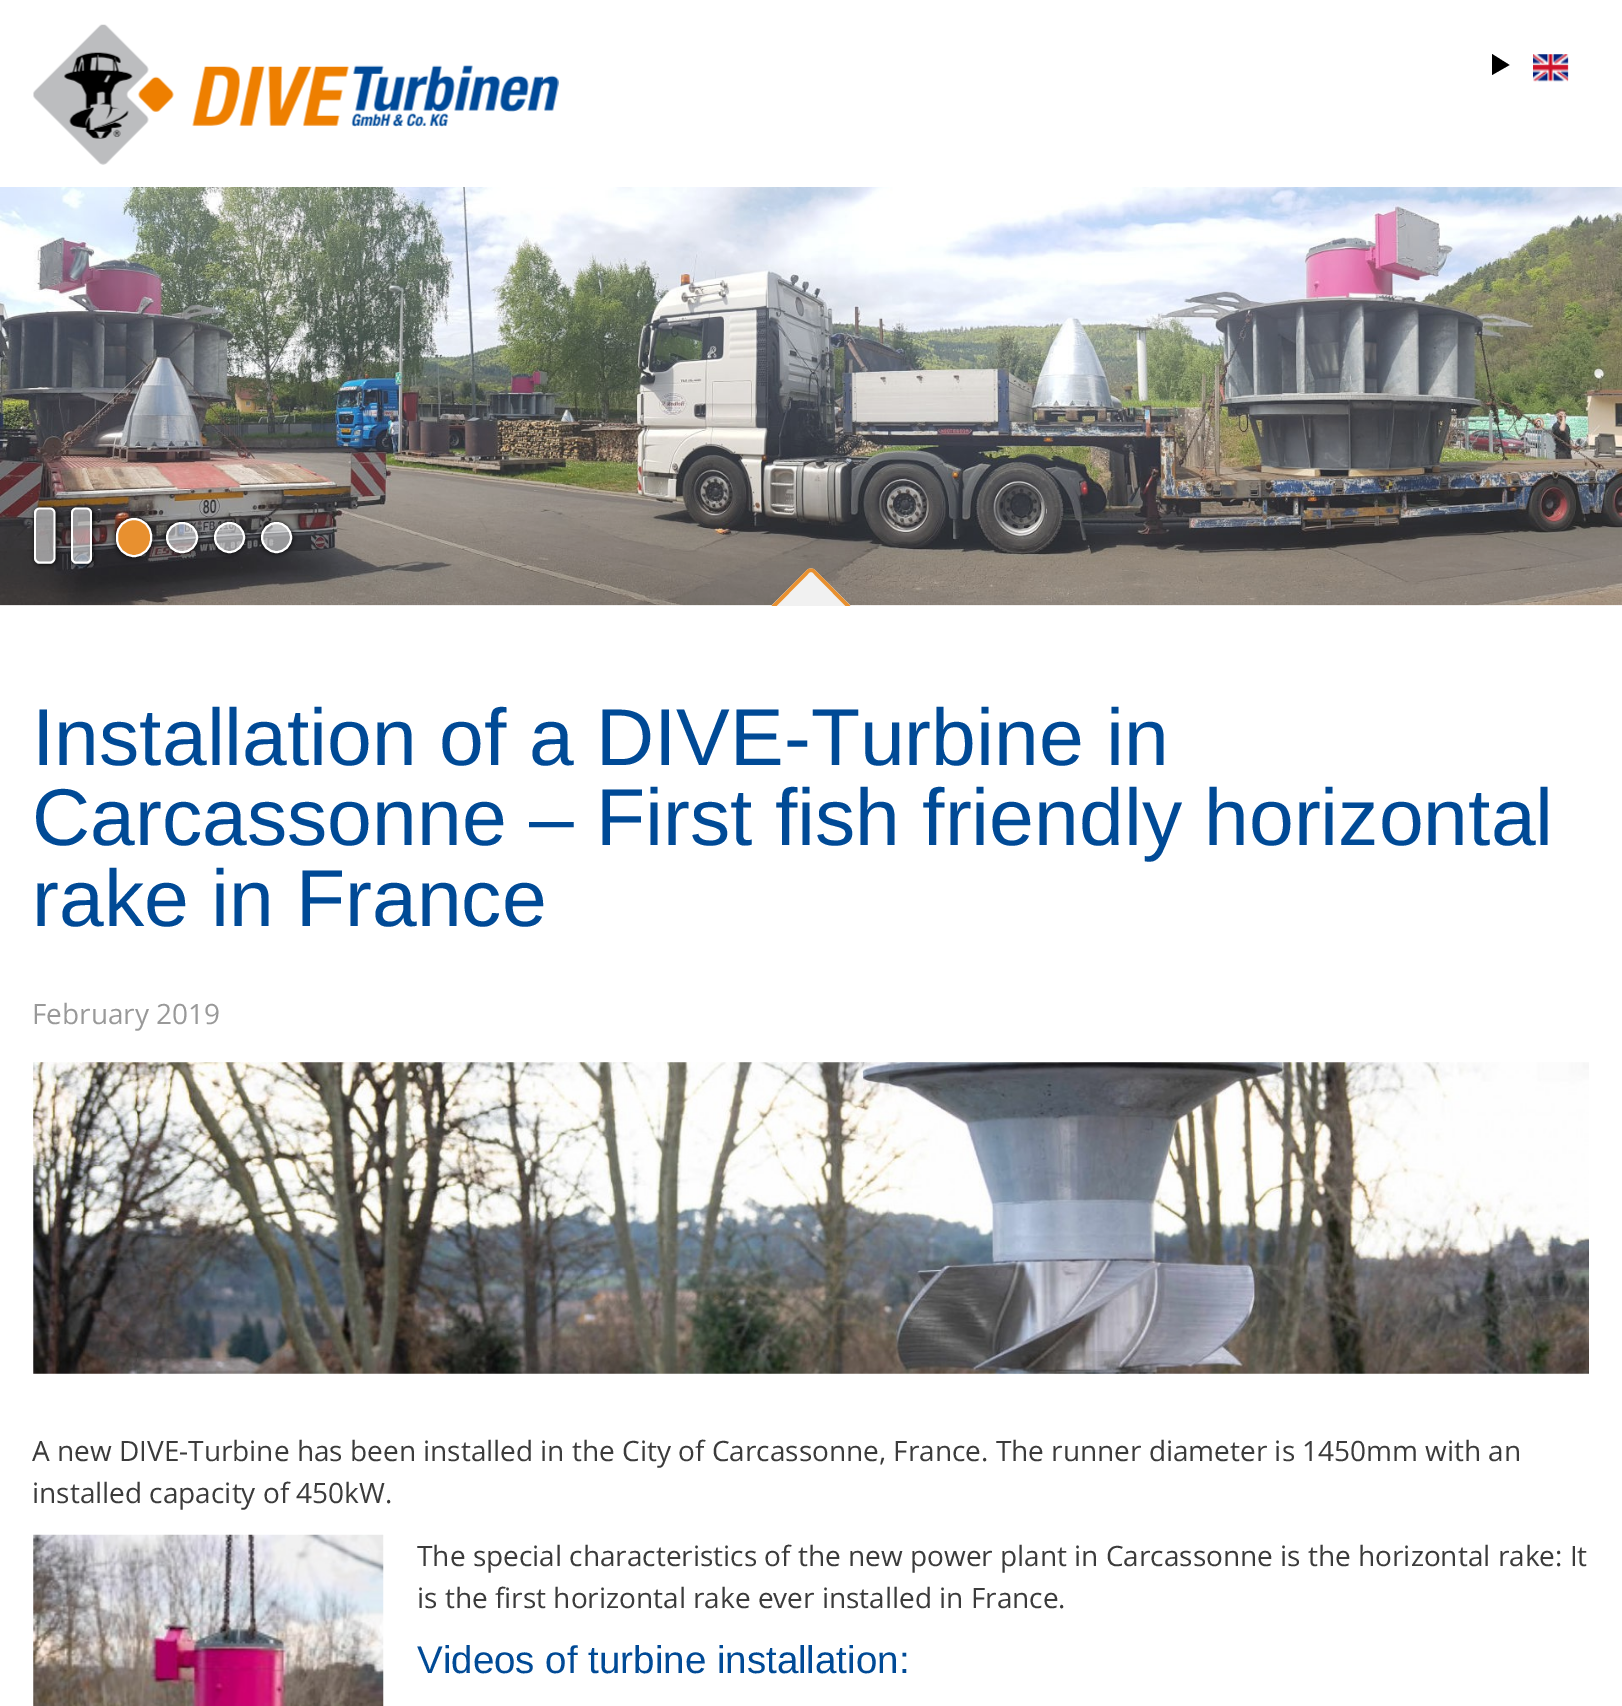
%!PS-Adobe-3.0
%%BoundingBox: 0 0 1622 1706
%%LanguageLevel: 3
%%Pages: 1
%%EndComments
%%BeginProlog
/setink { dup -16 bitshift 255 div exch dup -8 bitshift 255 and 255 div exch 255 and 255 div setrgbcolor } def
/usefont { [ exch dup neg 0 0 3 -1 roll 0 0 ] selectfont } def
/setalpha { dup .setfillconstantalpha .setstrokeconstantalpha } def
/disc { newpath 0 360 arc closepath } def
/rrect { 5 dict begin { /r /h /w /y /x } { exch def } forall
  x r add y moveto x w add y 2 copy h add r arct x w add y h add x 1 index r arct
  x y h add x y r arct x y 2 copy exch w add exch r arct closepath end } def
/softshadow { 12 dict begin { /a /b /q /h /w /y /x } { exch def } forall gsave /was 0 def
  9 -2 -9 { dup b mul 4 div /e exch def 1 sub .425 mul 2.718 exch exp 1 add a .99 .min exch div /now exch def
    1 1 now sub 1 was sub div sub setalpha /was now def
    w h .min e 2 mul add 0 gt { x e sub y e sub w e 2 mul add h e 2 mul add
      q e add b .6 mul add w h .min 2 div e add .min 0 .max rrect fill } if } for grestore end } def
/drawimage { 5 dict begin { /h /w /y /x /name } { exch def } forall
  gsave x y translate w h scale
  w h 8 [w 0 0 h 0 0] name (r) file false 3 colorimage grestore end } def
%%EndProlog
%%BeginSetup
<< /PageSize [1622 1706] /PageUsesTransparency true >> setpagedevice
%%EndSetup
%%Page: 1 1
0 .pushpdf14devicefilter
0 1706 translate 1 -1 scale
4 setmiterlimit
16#FFFFFF setink
0 0 1622 1706 rectfill
(img1.raw) 33 24 526 141 drawimage
16#000000 setink
1492 75 moveto 1492 54 lineto 1509.5 65 lineto closepath fill
(img2.raw) 1533 54 36 28 drawimage
(img3.raw) 0 187 1622 419 drawimage
gsave
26 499 moveto 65 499 lineto 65 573 lineto 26 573 lineto closepath 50 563.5 moveto 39.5 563.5 lineto 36.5 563.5 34 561 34 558 curveto 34 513 lineto 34 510 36.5 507.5 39.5 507.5 curveto 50 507.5 lineto 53 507.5 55 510 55 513 curveto 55 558 lineto 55 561 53 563.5 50 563.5 curveto closepath eoclip newpath
35 508 21 56 5 2.5 1 softshadow
grestore
0.5 setalpha
16#FFFFFF setink
50 564 moveto 39 564 lineto 37 564 34 561 34 558 curveto 34 513 lineto 34 510 37 508 39 508 curveto 50 508 lineto 53 508 55 510 55 513 curveto 55 558 lineto 55 561 53 564 50 564 curveto closepath fill
1 setalpha
1.8 setlinewidth
50 562.5 moveto 39.5 562.5 lineto 37 562.5 35 560.5 35 558 curveto 35 513 lineto 35 510.5 37 508.5 39.5 508.5 curveto 50 508.5 lineto 52.5 508.5 54.5 510.5 54.5 513 curveto 54.5 558 lineto 54.5 560.5 52.5 562.5 50 562.5 curveto closepath stroke
gsave
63 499 moveto 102 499 lineto 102 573 lineto 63 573 lineto closepath 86.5 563.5 moveto 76 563.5 lineto 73.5 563.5 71 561 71 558 curveto 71 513 lineto 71 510 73.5 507.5 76 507.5 curveto 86.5 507.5 lineto 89.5 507.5 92 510 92 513 curveto 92 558 lineto 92 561 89.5 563.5 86.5 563.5 curveto closepath eoclip newpath
16#000000 setink
72 508 21 56 5 2.5 1 softshadow
grestore
0.5 setalpha
87 564 moveto 76 564 lineto 73 564 71 561 71 558 curveto 71 513 lineto 71 510 73 508 76 508 curveto 87 508 lineto 90 508 92 510 92 513 curveto 92 558 lineto 92 561 90 564 87 564 curveto closepath fill
1 setalpha
86.5 562.5 moveto 76 562.5 lineto 74 562.5 72 560.5 72 558 curveto 72 513 lineto 72 510.5 74 508.5 76 508.5 curveto 86.5 508.5 lineto 89 508.5 91 510.5 91 513 curveto 91 558 lineto 91 560.5 89 562.5 86.5 562.5 curveto closepath stroke
16#000000 setink
116 518 36 39 18 3 1 softshadow
16#E8902F setink
117 519 34 37 17 rrect gsave fill grestore
16#FFFFFF setink
2 setlinewidth
stroke
gsave
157 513 moveto 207 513 lineto 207 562 lineto 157 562 lineto closepath 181.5 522 moveto 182.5 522 lineto 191 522 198 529 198 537.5 curveto 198 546 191 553 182.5 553 curveto 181.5 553 lineto 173 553 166 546 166 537.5 curveto 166 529 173 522 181.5 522 curveto closepath eoclip newpath
16#000000 setink
166 522 32 31 15.5 2.5 1 softshadow
grestore
0.5 setalpha
167 523 30 29 14.5 rrect fill
1 setalpha
167 523 30 29 14.5 rrect stroke
gsave
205 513 moveto 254 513 lineto 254 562 lineto 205 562 lineto closepath 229.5 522 moveto 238 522 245 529 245 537.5 curveto 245 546 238 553 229.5 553 curveto 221 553 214 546 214 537.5 curveto 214 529 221 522 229.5 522 curveto closepath eoclip newpath
16#000000 setink
214 522 31 31 15.5 2.5 1 softshadow
grestore
0.5 setalpha
229.5 537.5 14.5 disc fill
1 setalpha
229.5 537.5 14.5 disc stroke
gsave
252 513 moveto 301 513 lineto 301 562 lineto 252 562 lineto closepath 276.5 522 moveto 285 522 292 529 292 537.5 curveto 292 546 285 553 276.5 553 curveto 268 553 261 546 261 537.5 curveto 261 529 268 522 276.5 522 curveto closepath eoclip newpath
16#000000 setink
261 522 31 31 15.5 2.5 1 softshadow
grestore
0.5 setalpha
276.5 537.5 14.5 disc fill
1 setalpha
276.5 537.5 14.5 disc stroke
gsave
760 543 105 63 rectclip
16#F1F1F1 setink
770 607 moveto 807 570 lineto 809 568 813 568 815 570 curveto 852 607 lineto 854 609 854 612 852 614 curveto 815 652 lineto 813 654 809 654 807 652 curveto 770 614 lineto 768 612 768 609 770 607 curveto closepath fill
16#E8902F setink
3.5 setlinewidth
771.5 608.5 moveto 808.5 571 lineto 810 570 812 570 813.5 571 curveto 850.5 608.5 lineto 852 609.5 852 612 850.5 613 curveto 813.5 650.5 lineto 812 651.5 810 651.5 808.5 650.5 curveto 771.5 613 lineto 770 612 770 609.5 771.5 608.5 curveto closepath stroke
grestore
/LiberationSans-Regular 80.5 usefont
16#004A96 setink
[
    [(Installation of a DIVE-Turbine in) 32 765]
    [(Carcassonne – First fish friendly horizontal) 32 845]
    [(rake in France) 32 926]
] { aload pop moveto show } forall
/OpenSans-Regular 28 usefont
16#999999 setink
32 1024 moveto (February 2019) show
(img4.raw) 33 1062 1556 312 drawimage
16#3B3B3B setink
32 1461 moveto (A new DIVE-Turbine has been installed in the City of Carcassonne, France. The runner diameter is 1450mm with an) show
32 1503 moveto (installed capacity of 450kW.) show
(img5.raw) 33 1534 351 172 drawimage
417 1566 moveto (The special characteristics of the new power plant in Carcassonne is the horizontal rake: It) show
417 1608 moveto (is the first horizontal rake ever installed in France.) show
/LiberationSans-Regular 38.5 usefont
16#004A96 setink
417 1673 moveto (Videos of turbine installation:) show
.poppdf14devicefilter showpage
%%EOF
